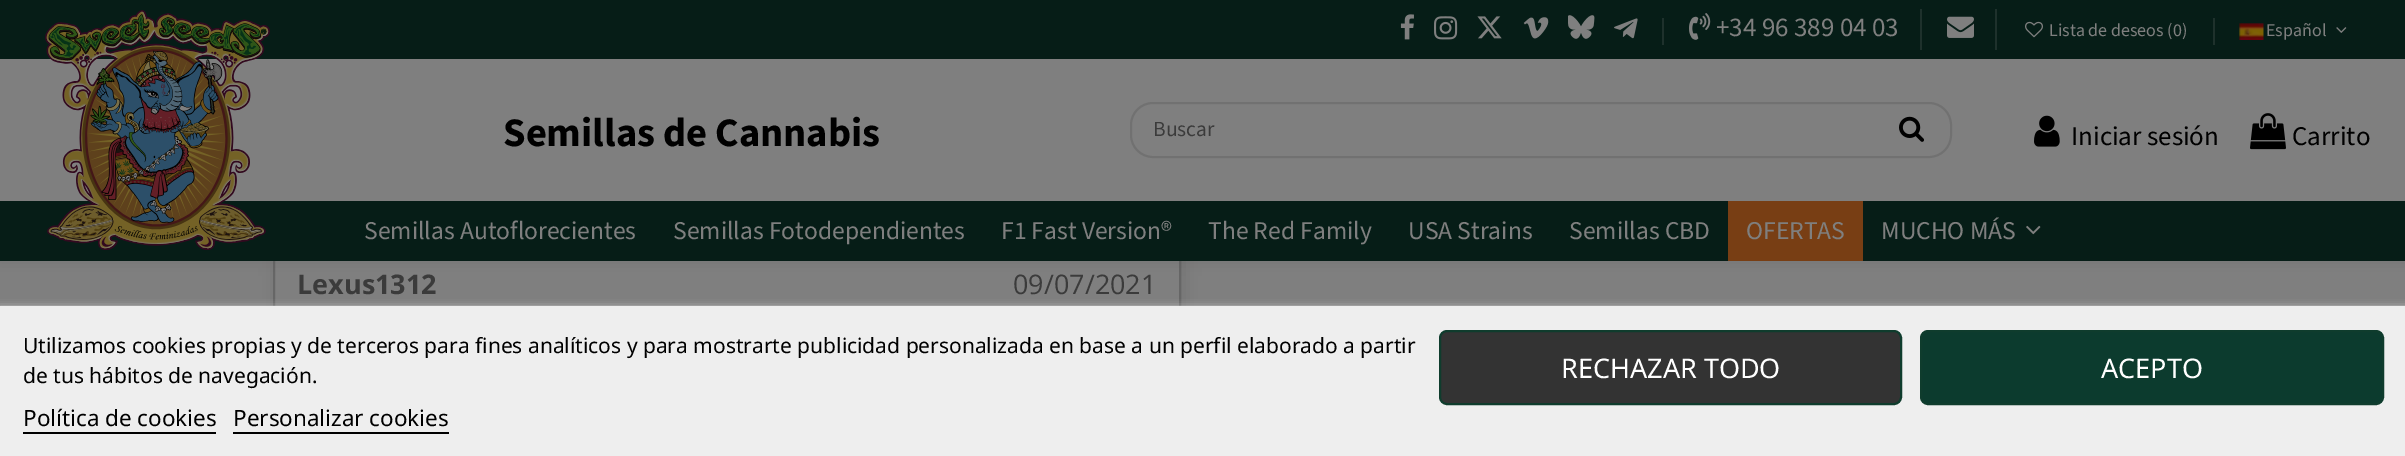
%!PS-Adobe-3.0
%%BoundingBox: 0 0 2405 456
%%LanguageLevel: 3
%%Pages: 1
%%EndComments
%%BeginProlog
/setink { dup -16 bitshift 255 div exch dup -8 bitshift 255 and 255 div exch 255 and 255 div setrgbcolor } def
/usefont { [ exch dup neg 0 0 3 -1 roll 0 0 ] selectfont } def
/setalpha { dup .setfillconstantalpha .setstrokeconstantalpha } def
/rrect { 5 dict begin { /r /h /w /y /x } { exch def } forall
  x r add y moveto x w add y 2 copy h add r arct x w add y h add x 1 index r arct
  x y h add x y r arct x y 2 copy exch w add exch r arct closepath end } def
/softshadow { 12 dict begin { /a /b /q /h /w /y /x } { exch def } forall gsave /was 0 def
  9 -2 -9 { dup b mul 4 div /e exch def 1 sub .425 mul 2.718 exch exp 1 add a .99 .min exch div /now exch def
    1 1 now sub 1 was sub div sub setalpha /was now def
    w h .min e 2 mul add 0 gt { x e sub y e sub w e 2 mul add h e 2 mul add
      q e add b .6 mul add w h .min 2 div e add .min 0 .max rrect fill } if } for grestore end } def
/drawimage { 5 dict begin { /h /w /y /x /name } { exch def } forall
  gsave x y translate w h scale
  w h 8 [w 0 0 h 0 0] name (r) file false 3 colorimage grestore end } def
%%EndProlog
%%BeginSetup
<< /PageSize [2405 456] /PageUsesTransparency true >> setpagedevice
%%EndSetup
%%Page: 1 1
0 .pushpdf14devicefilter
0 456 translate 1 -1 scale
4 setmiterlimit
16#FFFFFF setink
0 0 2405 456 rectfill
16#000000 setink
276 60 908 330 0 8 0.1 softshadow
16#FFFFFF setink
275 261 904 45 rectfill
16#CDCDCD setink
2 setlinewidth
274 58 906 328 rectstroke
16#3D3939 setink
0 -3 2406 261 0 8 0.17 softshadow
16#FFFFFF setink
0 59 2405 142 rectfill
16#0C3B2E setink
0 0 2405 59 rectfill
(img1.raw) 1400 14 14 26 drawimage
(img2.raw) 1434 16 24 24 drawimage
(img3.raw) 1477 16 25 23 drawimage
(img4.raw) 1523 17 26 22 drawimage
(img5.raw) 1568 15 27 24 drawimage
(img6.raw) 1614 18 24 21 drawimage
16#3D6258 setink
1662 18 2 27 rectfill
(img7.raw) 1689 13 22 27 drawimage
/SourceSans3-Regular 27 usefont
16#FFFFFF setink
1716 36 moveto (+34 96 389 04 03) show
16#3D6258 setink
1920 9 2 41 rectfill
(img8.raw) 1947 16 27 22 drawimage
1995 9 2 41 rectfill
(img9.raw) 2025 21 18 17 drawimage
/SourceSans3-Regular 18 usefont
16#FFFFFF setink
2049 36 moveto (Lista de deseos \(0\)) show
16#3D6258 setink
2213 18 2 27 rectfill
(img10.raw) 2239 23 25 17 drawimage
16#FFFFFF setink
2266 36 moveto (Español) show
(img11.raw) 2336 27 11 6 drawimage
16#0C3B2E setink
0 201 2405 60 rectfill
(img12.raw) 45 10 225 240 drawimage
/SourceSans3-Bold 40.5 usefont
16#000000 setink
503 146 moveto (Semillas de Cannabis) show
16#E3E3E3 setink
1131 103 820 54 22 rrect stroke
/SourceSans3-Regular 21.5 usefont
16#777777 setink
1153 136 moveto (Buscar) show
(img13.raw) 1899 116 25 26 drawimage
(img14.raw) 2034 115 26 32 drawimage
/SourceSans3-Regular 27 usefont
16#000000 setink
2071 145 moveto (Iniciar sesión) show
(img15.raw) 2250 113 36 37 drawimage
2292 145 moveto (Carrito) show
/SourceSans3-Regular 25.6 usefont
16#FFFFFF setink
[
    [(Semillas Autoflorecientes) 364 239]
    [(Semillas Fotodependientes) 673 239]
    [(F1 Fast Version®) 1001 239]
    [(The Red Family) 1208 239]
    [(USA Strains) 1408 239]
    [(Semillas CBD) 1569 239]
] { aload pop moveto show } forall
16#F07D28 setink
1728 201 135 60 rectfill
16#FFFFFF setink
1746 239 moveto (OFERTAS) show
1881 239 moveto (MUCHO MÁS) show
(img16.raw) 2026 225 15 10 drawimage
/OpenSans-Bold 27 usefont
16#777777 setink
297 294 moveto (Lexus1312) show
/OpenSans-Regular 27 usefont
1013 294 moveto (09/07/2021) show
0.5 setalpha
16#000000 setink
0 0 2405 306 rectfill
1 setalpha
16#EEEEEE setink
0 308 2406 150 0 4 1 softshadow
0 306 2405 150 rectfill
/NotoSans-Regular 21 usefont
16#000000 setink
23 353 moveto (Utilizamos cookies propias y de terceros para fines analíticos y para mostrarte publicidad personalizada en base a un perfil elaborado a partir) show
23 383 moveto (de tus hábitos de navegación.) show
/NotoSans-Regular 22.5 usefont
23 426 moveto (Política de cookies) show
23 432 193 2 rectfill
233 426 moveto (Personalizar cookies) show
233 432 216 2 rectfill
16#333333 setink
1440 331 461 73 7 rrect gsave fill grestore
16#0F3C2D setink
stroke
/NotoSans-Regular 27 usefont
16#FFFFFF setink
1561 378 moveto (RECHAZAR TODO) show
16#0C3B2E setink
1921 331 462 73 7 rrect gsave fill grestore
16#0F3C2D setink
stroke
16#FFFFFF setink
2101 378 moveto (ACEPTO) show
.poppdf14devicefilter showpage
%%EOF
